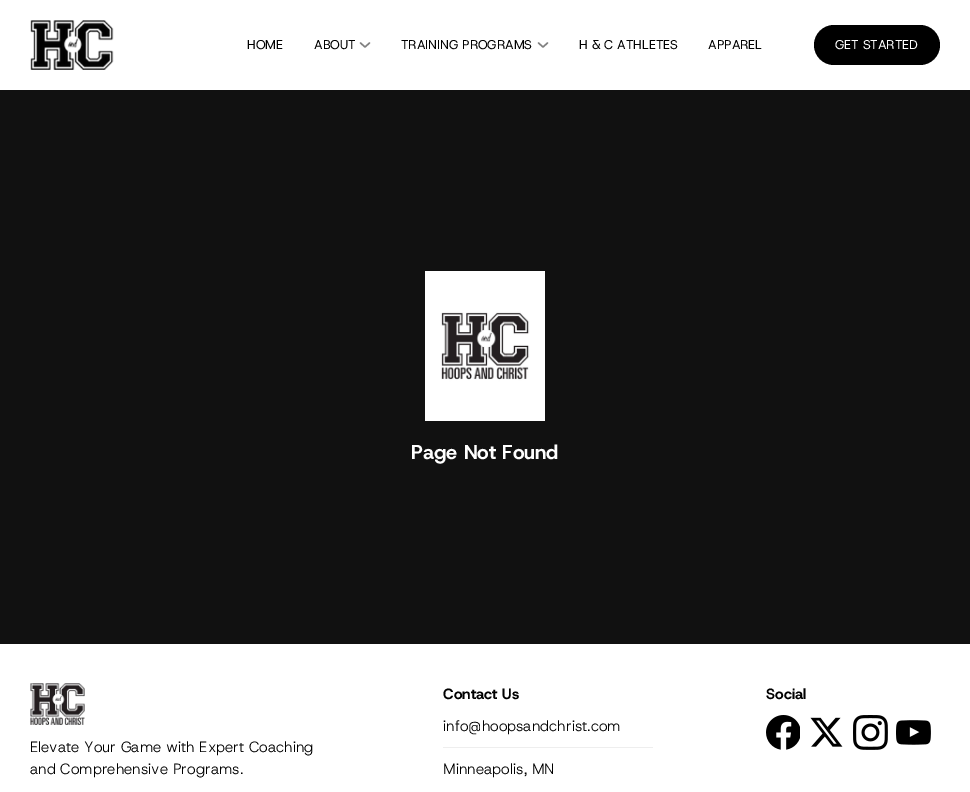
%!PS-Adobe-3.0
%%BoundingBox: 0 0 970 792
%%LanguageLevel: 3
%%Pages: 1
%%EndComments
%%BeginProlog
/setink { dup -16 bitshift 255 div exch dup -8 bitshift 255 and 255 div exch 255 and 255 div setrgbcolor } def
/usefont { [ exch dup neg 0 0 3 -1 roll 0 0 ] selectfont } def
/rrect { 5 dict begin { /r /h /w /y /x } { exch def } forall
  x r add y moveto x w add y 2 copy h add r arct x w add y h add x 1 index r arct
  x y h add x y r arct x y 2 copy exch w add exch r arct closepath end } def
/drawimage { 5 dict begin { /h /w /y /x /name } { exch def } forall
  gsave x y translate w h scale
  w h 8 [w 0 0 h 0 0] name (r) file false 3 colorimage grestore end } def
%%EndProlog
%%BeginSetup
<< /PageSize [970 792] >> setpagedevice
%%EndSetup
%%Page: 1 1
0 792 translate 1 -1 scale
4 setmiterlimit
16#111111 setink
0 0 970 792 rectfill
16#FFFFFF setink
0 0 970 90 rectfill
(img1.raw) 30 20 84 50 drawimage
/HostGrotesk-Regular 12.75 usefont
16#000000 setink
247 49 moveto (HOME) show
314 49 moveto (ABOUT) show
16#808080 setink
1.4 setlinewidth
1 setlinecap
1 setlinejoin
360.5 43 moveto 365 47 lineto 369.5 43 lineto stroke
16#000000 setink
401 49 moveto (TRAINING PROGRAMS) show
16#808080 setink
538.5 43 moveto 543 47 lineto 547.5 43 lineto stroke
16#000000 setink
579 49 moveto (H & C ATHLETES) show
708 49 moveto (APPAREL) show
814 25 126 40 20 rrect fill
16#FFFFFF setink
835 49 moveto (GET STARTED) show
(img2.raw) 425 271 120 150 drawimage
/HostGrotesk-Bold 20 usefont
411 459 moveto (Page Not Found) show
0 644 970 148 rectfill
/HostGrotesk-Bold 14.9 usefont
16#000000 setink
443 699 moveto (Contact Us) show
/HostGrotesk-Light 14.9 usefont
443 731 moveto (info@hoopsandchrist.com) show
16#EEEEEE setink
443 747 210 1 rectfill
16#000000 setink
443 774 moveto (Minneapolis, MN) show
/HostGrotesk-Bold 14.9 usefont
766 699 moveto (Social) show
(img3.raw) 766 715 34 35 drawimage
(img4.raw) 810 717 33 30 drawimage
(img5.raw) 853 715 35 35 drawimage
(img6.raw) 896 720 35 25 drawimage
(img7.raw) 30 683 55 42 drawimage
/HostGrotesk-Light 14.9 usefont
30 752 moveto (Elevate Your Game with Expert Coaching) show
30 774 moveto (and Comprehensive Programs.) show
showpage
%%EOF
